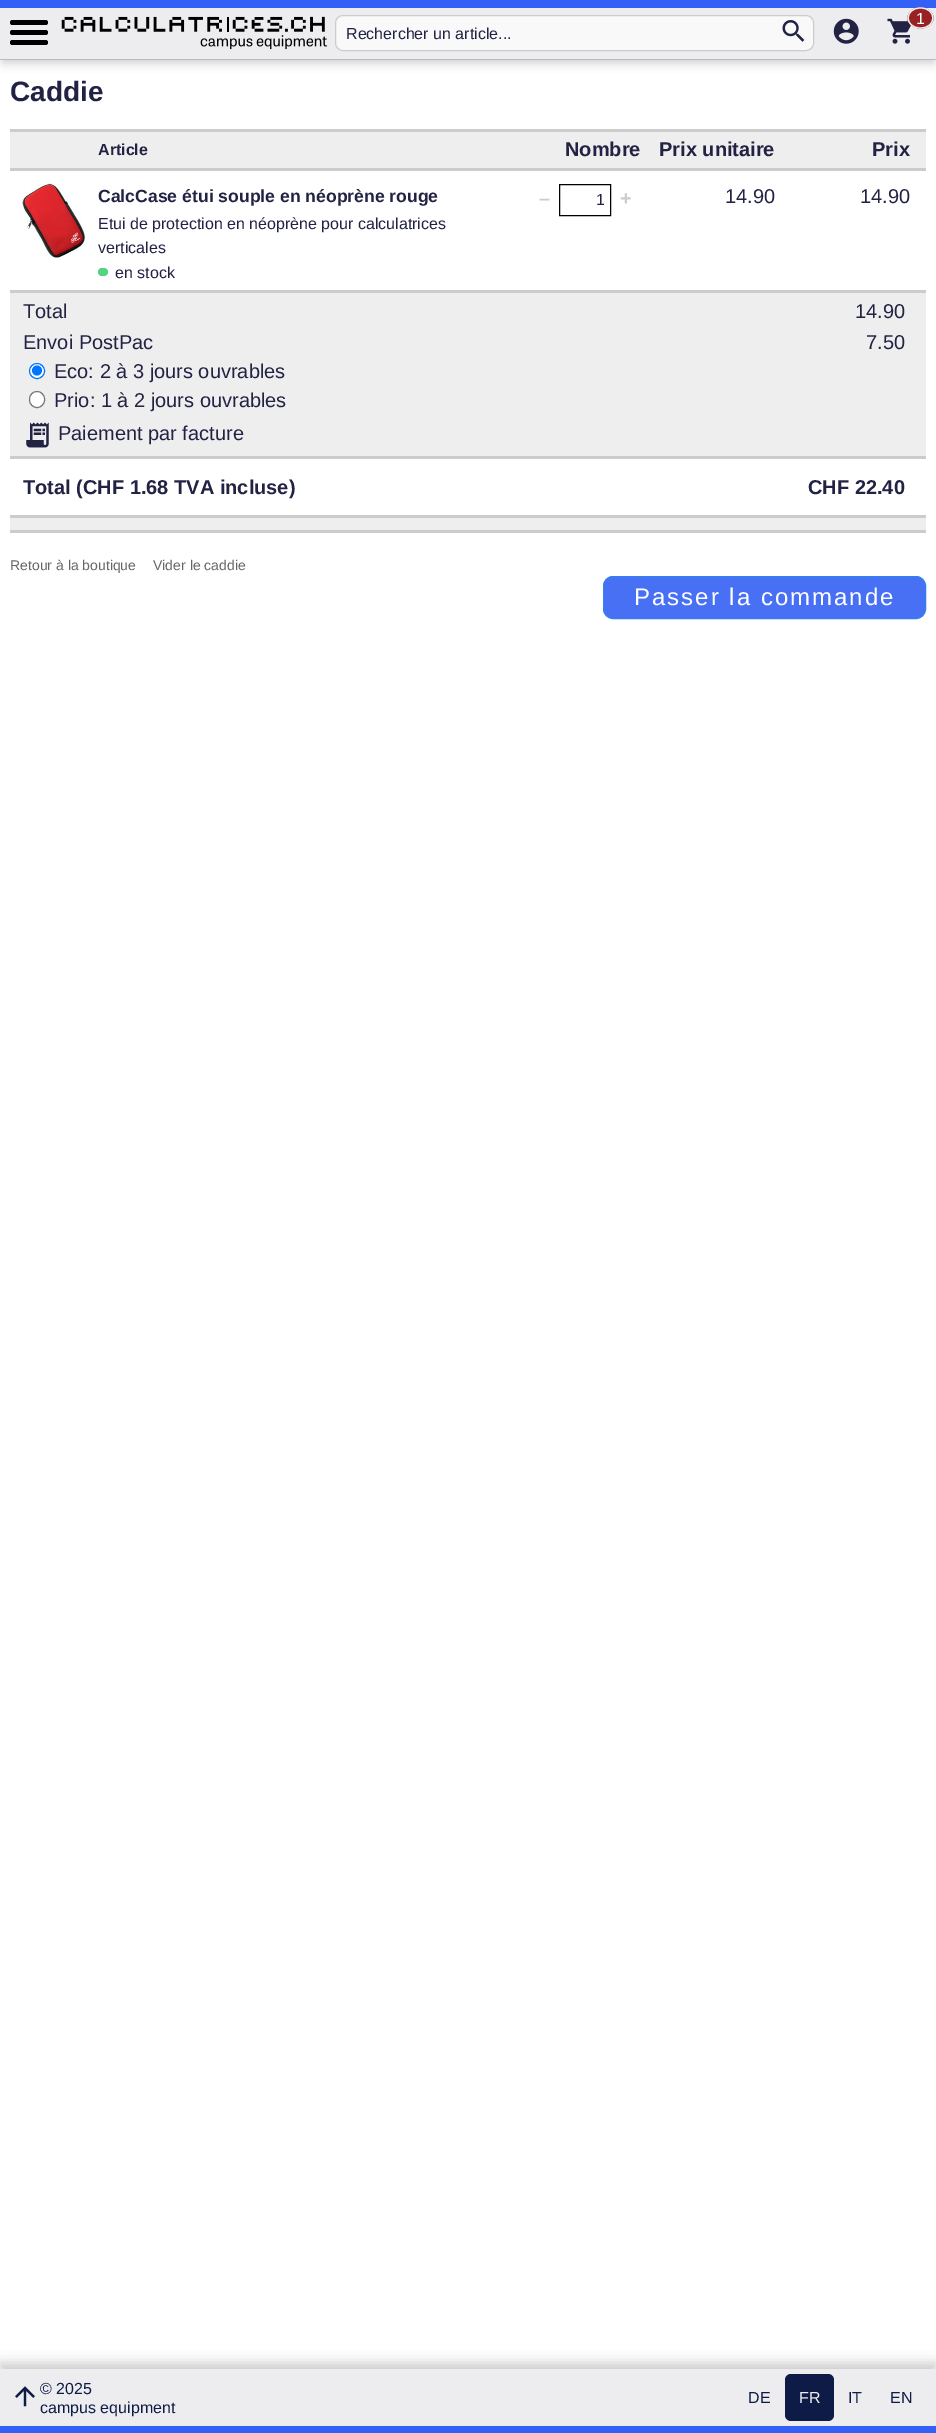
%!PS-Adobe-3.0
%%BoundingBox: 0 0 936 2433
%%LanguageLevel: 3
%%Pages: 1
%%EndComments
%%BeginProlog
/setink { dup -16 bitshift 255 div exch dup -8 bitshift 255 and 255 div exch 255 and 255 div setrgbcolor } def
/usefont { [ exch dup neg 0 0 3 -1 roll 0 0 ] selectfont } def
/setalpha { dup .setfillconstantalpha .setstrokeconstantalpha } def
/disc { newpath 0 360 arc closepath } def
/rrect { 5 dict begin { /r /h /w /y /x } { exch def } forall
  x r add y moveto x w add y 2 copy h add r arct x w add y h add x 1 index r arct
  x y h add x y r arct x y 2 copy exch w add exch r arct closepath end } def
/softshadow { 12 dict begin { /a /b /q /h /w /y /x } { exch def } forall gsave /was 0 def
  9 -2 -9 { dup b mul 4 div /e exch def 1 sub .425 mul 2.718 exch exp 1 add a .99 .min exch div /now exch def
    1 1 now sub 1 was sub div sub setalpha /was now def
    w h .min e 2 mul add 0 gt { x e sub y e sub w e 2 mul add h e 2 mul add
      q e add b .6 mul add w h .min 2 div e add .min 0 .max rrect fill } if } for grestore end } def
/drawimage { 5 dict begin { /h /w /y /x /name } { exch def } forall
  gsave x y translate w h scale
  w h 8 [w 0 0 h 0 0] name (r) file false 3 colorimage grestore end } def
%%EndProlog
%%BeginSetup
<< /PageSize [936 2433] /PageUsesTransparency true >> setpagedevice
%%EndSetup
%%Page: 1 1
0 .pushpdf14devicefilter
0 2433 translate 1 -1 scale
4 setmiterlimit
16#FFFFFF setink
0 0 936 2433 rectfill
16#CCCCCC setink
3 8 931 55 0 5 1 softshadow
[
    [0 8 936 51 16#EDEDEF]
    [0 0 936 8 16#3361F8]
    [0 59 936 1 16#BBBBBB]
] { aload pop setink rectfill } forall
16#000000 setink
10 30 38 5 2.5 rrect fill
10 20 38 5 2.5 rrect fill
10 40 38 5 2.5 rrect fill
(img1.raw) 61 16 266 34 drawimage
16#F9F9F9 setink
335.5 15.5 478 35 7.5 rrect gsave fill grestore
16#CCCCCC setink
stroke
/LiberationSans-Regular 16 usefont
16#222244 setink
346 39 moveto (Rechercher un article...) show
(img2.raw) 782 20 23 22 drawimage
(img3.raw) 833 18 26 26 drawimage
(img4.raw) 887 18 25 26 drawimage
16#972123 setink
920.5 7.5 moveto 927.5 7.5 933.5 12 933.5 18 curveto 933.5 24 927.5 28.5 920.5 28.5 curveto 913.5 28.5 907.5 24 907.5 18 curveto 907.5 12 913.5 7.5 920.5 7.5 curveto closepath fill
16#EEEEEE setink
1.2 setlinewidth
920.5 8 moveto 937 8 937 28 920.5 28 curveto 904 28 904 8 920.5 8 curveto closepath stroke
16#FFFFFF setink
916 24 moveto (1) show
/LiberationSans-Bold 28 usefont
16#222244 setink
10 101 moveto (Caddie) show
[
    [10 132 916 36 16#EEEEEE]
    [10 129 916 3 16#CCCCCC]
    [10 168 916 3 16#CCCCCC]
] { aload pop setink rectfill } forall
/LiberationSans-Bold 16 usefont
16#222244 setink
98 155 moveto (Article) show
/LiberationSans-Bold 20 usefont
[
    [(Nombre) 565 156]
    [(Prix unitaire) 659 156]
    [(Prix) 872 156]
] { aload pop moveto show } forall
(img5.raw) 22 183 63 75 drawimage
/LiberationSans-Bold 17.6 usefont
98 202 moveto (CalcCase étui souple en néoprène rouge) show
/LiberationSans-Regular 16 usefont
98 229 moveto (Etui de protection en néoprène pour calculatrices) show
98 253 moveto (verticales) show
16#52D482 setink
98 268 10 8 4 rrect fill
16#222244 setink
115 278 moveto (en stock) show
/LiberationSans-Bold 20 usefont
16#CCCCCC setink
539 205 moveto (–) show
16#000000 setink
1 setlinewidth
559.5 184.5 51 31 rectstroke
/LiberationSans-Regular 16 usefont
16#222244 setink
596 205 moveto (1) show
/LiberationSans-Bold 20 usefont
16#CCCCCC setink
620 205 moveto (+) show
/LiberationSans-Regular 20 usefont
16#222244 setink
725 203 moveto (14.90) show
860 203 moveto (14.90) show
[
    [10 293 916 163 16#EEEEEE]
    [10 290 916 3 16#CCCCCC]
    [10 456 916 3 16#CCCCCC]
] { aload pop setink rectfill } forall
16#222244 setink
[
    [(Total) 23 318]
    [(14.90) 855 318]
    [(Envoi PostPac) 23 349]
] { aload pop moveto show } forall
16#FFFFFF setink
37 371 7.5 disc gsave fill grestore
16#0075FF setink
stroke
37 370.5 5 disc fill
16#222244 setink
54 378 moveto (Eco: 2 à 3 jours ouvrables) show
16#FFFFFF setink
29.5 391.5 15 16 7.5 rrect gsave fill grestore
16#767676 setink
stroke
16#222244 setink
54 407 moveto (Prio: 1 à 2 jours ouvrables) show
866 349 moveto (7.50) show
(img6.raw) 26 422 23 26 drawimage
58 440 moveto (Paiement par facture) show
/LiberationSans-Bold 20 usefont
23 494 moveto (Total \(CHF 1.68 TVA incluse\)) show
808 494 moveto (CHF 22.40) show
[
    [10 518 916 12 16#EEEEEE]
    [10 515 916 3 16#CCCCCC]
    [10 530 916 3 16#CCCCCC]
] { aload pop setink rectfill } forall
/LiberationSans-Regular 14 usefont
16#666666 setink
10 570 moveto (Retour à la boutique) show
153 570 moveto (Vider le caddie) show
16#4870F5 setink
603.5 576.5 322 42 9.5 rrect gsave fill grestore
16#337FED setink
stroke
/LiberationSans-Regular 24 usefont
16#FFFFFF setink
634 605 moveto 2 0 (Passer la commande) ashow
16#000000 setink
0 2363 936 65 0 6 0.2 softshadow
16#EDEDEF setink
0 2369 936 57 rectfill
16#3361F8 setink
0 2426 936 7 rectfill
(img7.raw) 15 2386 20 21 drawimage
/LiberationSans-Regular 16 usefont
16#0E1B46 setink
[
    [(© 2025) 40 2394]
    [(campus equipment) 40 2413]
    [(DE) 748 2403]
] { aload pop moveto show } forall
785 2374 49 47 6 rrect fill
16#EDEDEF setink
799 2403 moveto (FR) show
16#0E1B46 setink
848 2403 moveto (IT) show
890 2403 moveto (EN) show
.poppdf14devicefilter showpage
%%EOF
